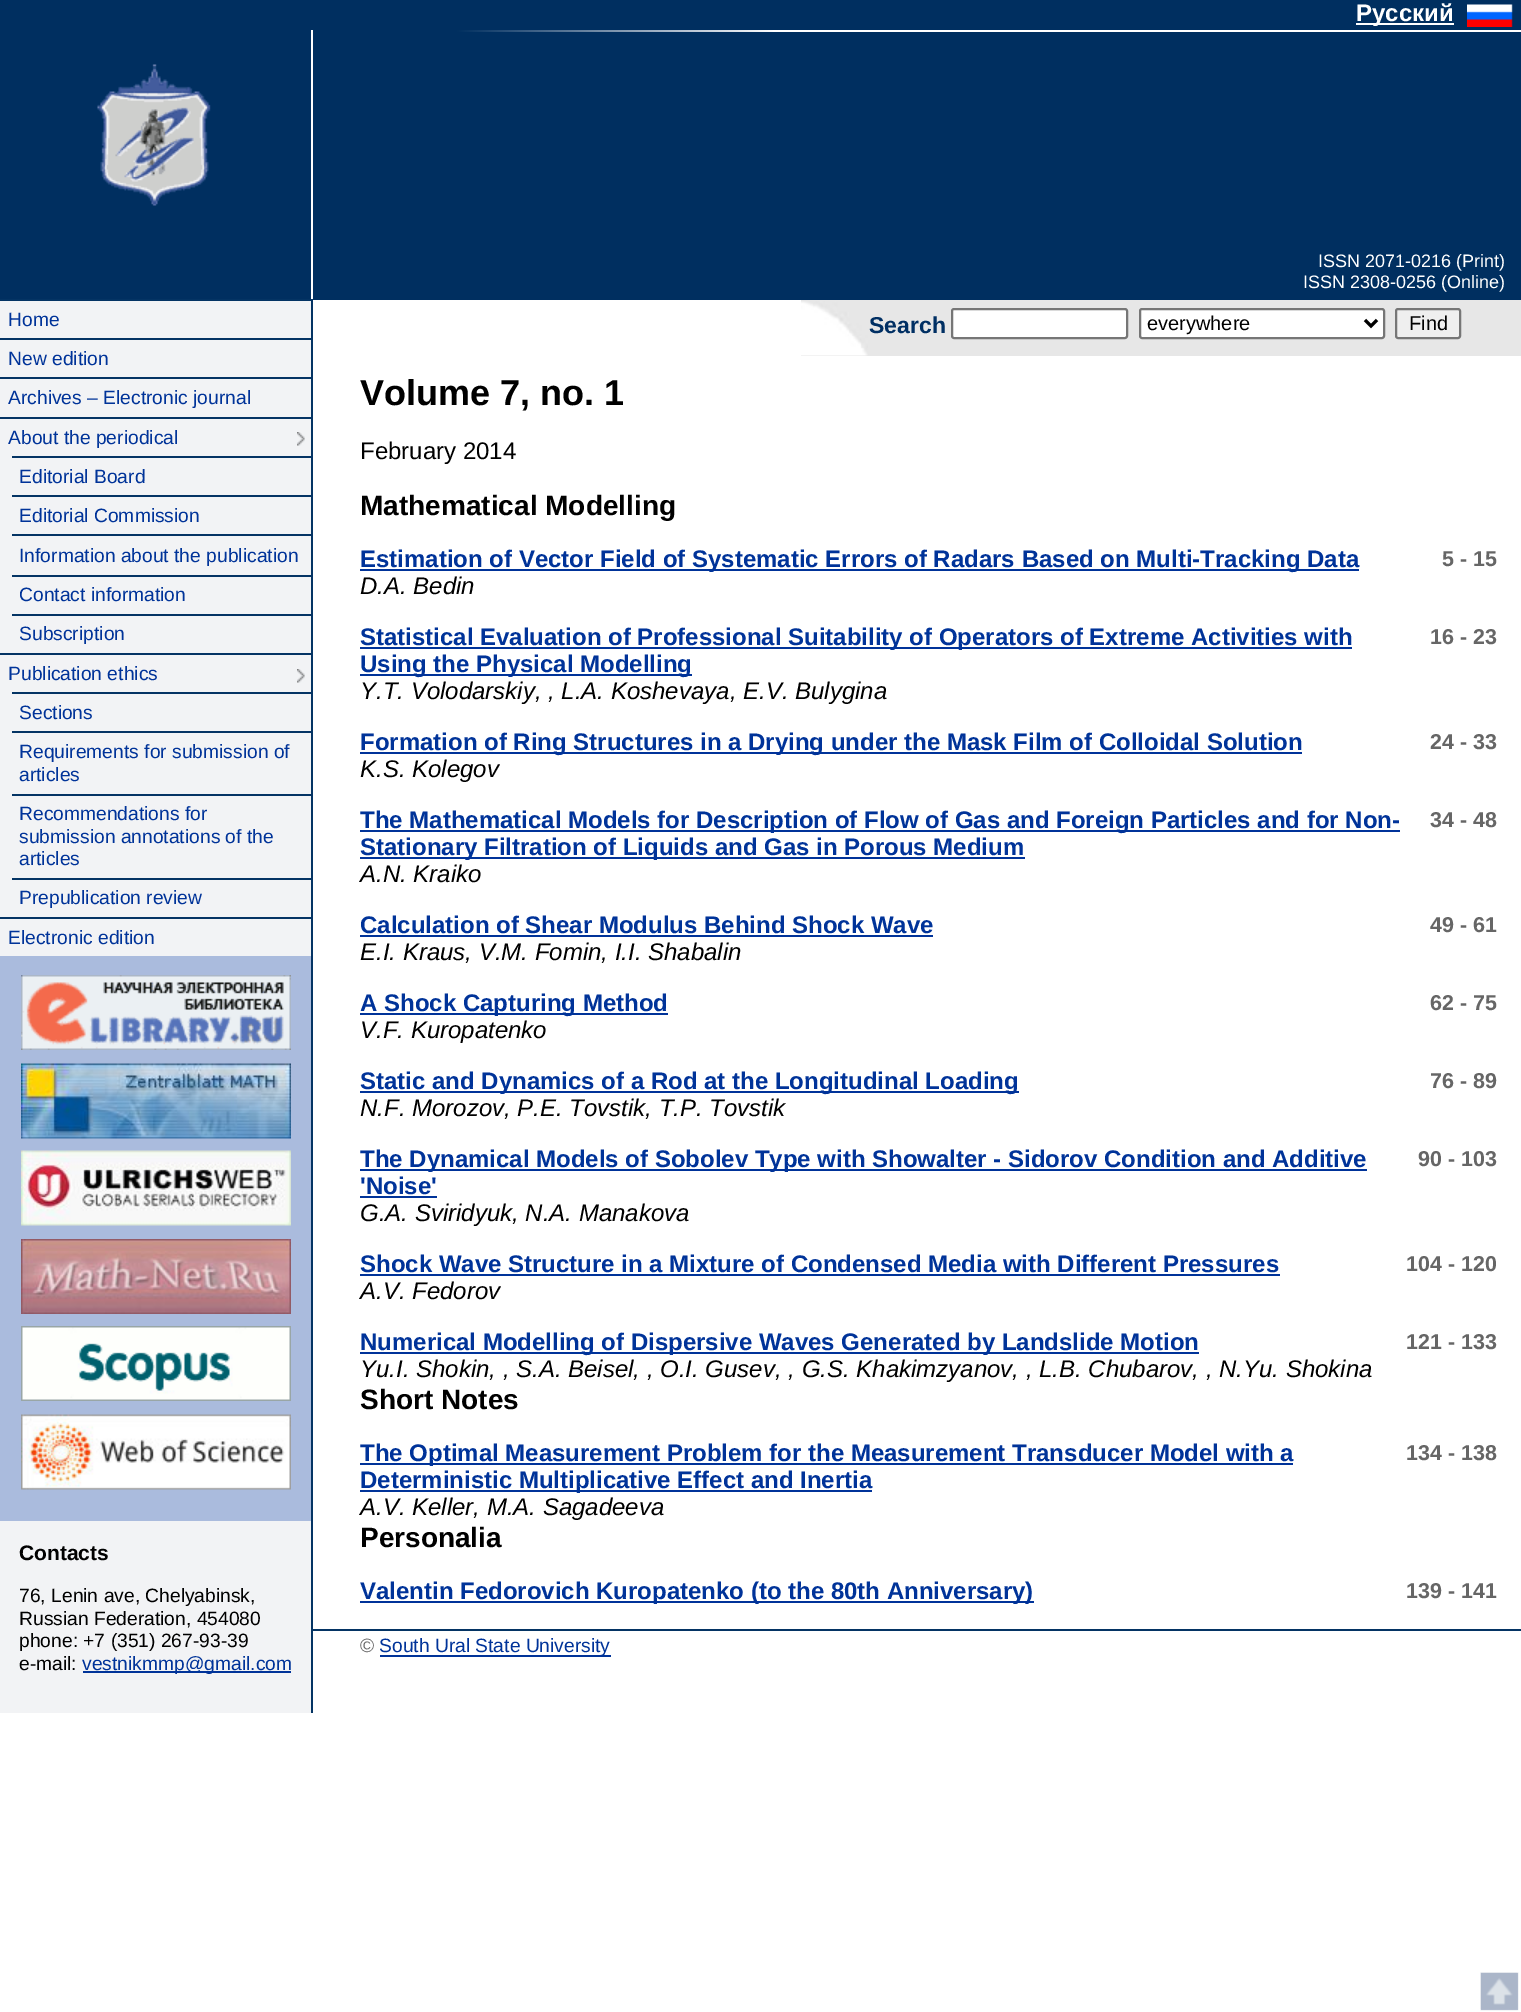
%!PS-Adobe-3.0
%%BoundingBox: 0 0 1521 2012
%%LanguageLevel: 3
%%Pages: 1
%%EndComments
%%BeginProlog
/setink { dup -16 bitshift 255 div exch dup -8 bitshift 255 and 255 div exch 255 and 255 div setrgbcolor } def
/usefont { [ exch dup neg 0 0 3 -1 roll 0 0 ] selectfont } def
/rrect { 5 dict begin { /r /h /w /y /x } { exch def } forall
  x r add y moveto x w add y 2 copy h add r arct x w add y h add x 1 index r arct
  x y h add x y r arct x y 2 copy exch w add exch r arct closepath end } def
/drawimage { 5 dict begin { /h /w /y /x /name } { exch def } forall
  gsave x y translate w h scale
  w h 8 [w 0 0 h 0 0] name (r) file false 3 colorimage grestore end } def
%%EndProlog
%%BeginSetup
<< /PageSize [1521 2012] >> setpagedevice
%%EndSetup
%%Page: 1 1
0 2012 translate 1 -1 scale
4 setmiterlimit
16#FFFFFF setink
0 0 1521 2012 rectfill
16#002F60 setink
0 32 1521 268 rectfill
gsave 0 30 moveto 773 30 lineto 773 32 lineto 0 32 lineto closepath clip newpath
<< /ShadingType 2 /ColorSpace /DeviceRGB /Coords [0 16 1521 16] /Extend [true true] /Function << /FunctionType 3 /Domain [0 1] /Functions [<< /FunctionType 2 /Domain [0 1] /C0 [0 0.184 0.376] /C1 [0 0.184 0.376] /N 1 >> << /FunctionType 2 /Domain [0 1] /C0 [0 0.184 0.376] /C1 [1 1 1] /N 1 >> << /FunctionType 2 /Domain [0 1] /C0 [1 1 1] /C1 [1 1 1] /N 1 >>] /Bounds [0.3 0.51] /Encode [0 1 0 1 0 1] >> >> shfill grestore
0 0 1521 30 rectfill
(img1.raw) 1467 4 46 23 drawimage
16#FFFFFF setink
1356 23 98 2 rectfill
/LiberationSans-Bold 24 usefont
1356 21 moveto (Русский) show
(img2.raw) 97 64 114 142 drawimage
311 30 2 270 rectfill
/LiberationSans-Regular 18 usefont
1318 267 moveto (ISSN 2071-0216 \(Print\)) show
1303 288 moveto (ISSN 2308-0256 \(Online\)) show
[
    [0 301 311 1412 16#F2F3F5]
    [311 299 2 1414 16#043464]
    [0 299 311 2 16#043464]
] { aload pop setink rectfill } forall
/LiberationSans-Regular 19.25 usefont
16#003399 setink
8 326 moveto (Home) show
16#043464 setink
0 338 311 2 rectfill
16#003399 setink
8 365 moveto (New edition) show
16#043464 setink
0 377 311 2 rectfill
16#003399 setink
8 404 moveto (Archives – Electronic journal) show
(img3.raw) 297 432 8 14 drawimage
16#043464 setink
0 417 311 2 rectfill
16#003399 setink
8 444 moveto (About the periodical) show
16#043464 setink
12 456 299 2 rectfill
16#003399 setink
19 483 moveto (Editorial Board) show
16#043464 setink
12 495 299 2 rectfill
16#003399 setink
19 522 moveto (Editorial Commission) show
16#043464 setink
12 534 299 2 rectfill
16#003399 setink
19 562 moveto (Information about the publication) show
16#043464 setink
12 575 299 2 rectfill
16#003399 setink
19 601 moveto (Contact information) show
16#043464 setink
12 614 299 2 rectfill
16#003399 setink
19 640 moveto (Subscription) show
(img3.raw) 297 669 8 14 drawimage
16#043464 setink
0 653 311 2 rectfill
16#003399 setink
8 680 moveto (Publication ethics) show
16#043464 setink
12 692 299 2 rectfill
16#003399 setink
19 719 moveto (Sections) show
16#043464 setink
12 731 299 2 rectfill
16#003399 setink
19 758 moveto (Requirements for submission of) show
19 781 moveto (articles) show
16#043464 setink
12 794 299 2 rectfill
16#003399 setink
[
    [(Recommendations for) 19 820]
    [(submission annotations of the) 19 843]
    [(articles) 19 865]
] { aload pop moveto show } forall
16#043464 setink
12 878 299 2 rectfill
16#003399 setink
19 904 moveto (Prepublication review) show
16#043464 setink
0 917 311 2 rectfill
16#003399 setink
8 944 moveto (Electronic edition) show
16#AABBDD setink
0 956 311 565 rectfill
(img4.raw) 21 975 270 75 drawimage
(img5.raw) 21 1063 270 76 drawimage
(img6.raw) 21 1150 270 76 drawimage
(img7.raw) 21 1239 270 75 drawimage
(img8.raw) 21 1326 270 75 drawimage
(img9.raw) 21 1414 270 76 drawimage
/LiberationSans-Bold 21 usefont
16#000000 setink
19 1560 moveto (Contacts) show
/LiberationSans-Regular 19.25 usefont
[
    [(76, Lenin ave, Chelyabinsk,) 19 1602]
    [(Russian Federation, 454080) 19 1625]
    [(phone: +7 \(351\) 267-93-39) 19 1647]
    [(e-mail:) 19 1670]
] { aload pop moveto show } forall
16#003399 setink
83 1671 208 2 rectfill
82 1670 moveto (vestnikmmp@gmail.com) show
16#E7E7E7 setink
801 300 720 56 rectfill
(img10.raw) 801 301 67 55 drawimage
/LiberationSans-Bold 23 usefont
16#002F63 setink
869 333 moveto (Search) show
16#FFFFFF setink
952 309 175 29 2 rrect gsave fill grestore
16#767676 setink
2 setlinewidth
stroke
16#FFFFFF setink
1140 309 244 29 2 rrect gsave fill grestore
16#767676 setink
stroke
16#000000 setink
3 setlinewidth
1365 320 moveto 1371 326 lineto 1377 320 lineto stroke
/LiberationSans-Regular 20 usefont
1147 330 moveto (everywhere) show
16#EFEFEF setink
1396 309 64 29 2 rrect gsave fill grestore
16#767676 setink
2 setlinewidth
stroke
16#000000 setink
1409 330 moveto (Find) show
/LiberationSans-Bold 36 usefont
360 405 moveto (Volume 7, no. 1) show
/LiberationSans-Regular 24 usefont
360 459 moveto (February 2014) show
/LiberationSans-Bold 28 usefont
360 515 moveto (Mathematical Modelling) show
16#003399 setink
360 569 999 2 rectfill
/LiberationSans-Bold 24 usefont
360 567 moveto (Estimation of Vector Field of Systematic Errors of Radars Based on Multi-Tracking Data) show
/LiberationSans-Bold 21.5 usefont
16#666666 setink
1442 566 moveto (5 - 15) show
/LiberationSans-Italic 24 usefont
16#000000 setink
360 594 moveto (D.A. Bedin) show
16#003399 setink
360 647 992 2 rectfill
/LiberationSans-Bold 24 usefont
360 645 moveto (Statistical Evaluation of Professional Suitability of Operators of Extreme Activities with) show
/LiberationSans-Bold 21.5 usefont
16#666666 setink
1430 644 moveto (16 - 23) show
16#003399 setink
360 674 332 2 rectfill
/LiberationSans-Bold 24 usefont
360 672 moveto (Using the Physical Modelling) show
/LiberationSans-Italic 24 usefont
16#000000 setink
360 699 moveto (Y.T. Volodarskiy, , L.A. Koshevaya, E.V. Bulygina) show
16#003399 setink
360 752 942 2 rectfill
/LiberationSans-Bold 24 usefont
360 750 moveto (Formation of Ring Structures in a Drying under the Mask Film of Colloidal Solution) show
/LiberationSans-Bold 21.5 usefont
16#666666 setink
1430 749 moveto (24 - 33) show
/LiberationSans-Italic 24 usefont
16#000000 setink
360 777 moveto (K.S. Kolegov) show
16#003399 setink
360 830 1040 2 rectfill
/LiberationSans-Bold 24 usefont
360 828 moveto (The Mathematical Models for Description of Flow of Gas and Foreign Particles and for Non-) show
/LiberationSans-Bold 21.5 usefont
16#666666 setink
1430 827 moveto (34 - 48) show
16#003399 setink
360 857 665 2 rectfill
/LiberationSans-Bold 24 usefont
360 855 moveto (Stationary Filtration of Liquids and Gas in Porous Medium) show
/LiberationSans-Italic 24 usefont
16#000000 setink
360 882 moveto (A.N. Kraiko) show
/LiberationSans-Bold 24 usefont
16#003399 setink
360 933 moveto (Calculation of Shear Modulus Behind Shock Wave) show
360 935 573 2 rectfill
/LiberationSans-Bold 21.5 usefont
16#666666 setink
1430 932 moveto (49 - 61) show
/LiberationSans-Italic 24 usefont
16#000000 setink
360 960 moveto (E.I. Kraus, V.M. Fomin, I.I. Shabalin) show
16#003399 setink
360 1013 308 2 rectfill
/LiberationSans-Bold 24 usefont
360 1011 moveto (A Shock Capturing Method) show
/LiberationSans-Bold 21.5 usefont
16#666666 setink
1430 1010 moveto (62 - 75) show
/LiberationSans-Italic 24 usefont
16#000000 setink
360 1038 moveto (V.F. Kuropatenko) show
16#003399 setink
360 1091 659 2 rectfill
/LiberationSans-Bold 24 usefont
360 1089 moveto (Static and Dynamics of a Rod at the Longitudinal Loading) show
/LiberationSans-Bold 21.5 usefont
16#666666 setink
1430 1088 moveto (76 - 89) show
/LiberationSans-Italic 24 usefont
16#000000 setink
360 1116 moveto (N.F. Morozov, P.E. Tovstik, T.P. Tovstik) show
16#003399 setink
360 1169 1007 2 rectfill
/LiberationSans-Bold 24 usefont
360 1167 moveto (The Dynamical Models of Sobolev Type with Showalter - Sidorov Condition and Additive) show
/LiberationSans-Bold 21.5 usefont
16#666666 setink
1418 1166 moveto (90 - 103) show
/LiberationSans-Bold 24 usefont
16#003399 setink
360 1194 moveto ('Noise') show
360 1196 77 2 rectfill
/LiberationSans-Italic 24 usefont
16#000000 setink
360 1221 moveto (G.A. Sviridyuk, N.A. Manakova) show
/LiberationSans-Bold 24 usefont
16#003399 setink
360 1272 moveto (Shock Wave Structure in a Mixture of Condensed Media with Different Pressures) show
360 1274 920 2 rectfill
/LiberationSans-Bold 21.5 usefont
16#666666 setink
1406 1271 moveto (104 - 120) show
/LiberationSans-Italic 24 usefont
16#000000 setink
360 1299 moveto (A.V. Fedorov) show
16#003399 setink
360 1352 839 2 rectfill
/LiberationSans-Bold 24 usefont
360 1350 moveto (Numerical Modelling of Dispersive Waves Generated by Landslide Motion) show
/LiberationSans-Bold 21.5 usefont
16#666666 setink
1406 1349 moveto (121 - 133) show
/LiberationSans-Italic 24 usefont
16#000000 setink
360 1377 moveto (Yu.I. Shokin, , S.A. Beisel, , O.I. Gusev, , G.S. Khakimzyanov, , L.B. Chubarov, , N.Yu. Shokina) show
/LiberationSans-Bold 28 usefont
360 1409 moveto (Short Notes) show
16#003399 setink
360 1463 933 2 rectfill
/LiberationSans-Bold 24 usefont
360 1461 moveto (The Optimal Measurement Problem for the Measurement Transducer Model with a) show
/LiberationSans-Bold 21.5 usefont
16#666666 setink
1406 1460 moveto (134 - 138) show
16#003399 setink
360 1490 512 2 rectfill
/LiberationSans-Bold 24 usefont
360 1488 moveto (Deterministic Multiplicative Effect and Inertia) show
/LiberationSans-Italic 24 usefont
16#000000 setink
360 1515 moveto (A.V. Keller, M.A. Sagadeeva) show
/LiberationSans-Bold 28 usefont
360 1547 moveto (Personalia) show
16#003399 setink
360 1601 674 2 rectfill
/LiberationSans-Bold 24 usefont
360 1599 moveto (Valentin Fedorovich Kuropatenko \(to the 80th Anniversary\)) show
/LiberationSans-Bold 21.5 usefont
16#666666 setink
1406 1598 moveto (139 - 141) show
16#043464 setink
313 1629 1208 2 rectfill
/LiberationSans-Regular 19.25 usefont
16#666666 setink
360 1652 moveto (©) show
16#003399 setink
380 1655 231 2 rectfill
379 1652 moveto (South Ural State University) show
16#BBC4D5 setink
1481 1973 37 37 rectfill
(img11.raw) 1480 1972 39 39 drawimage
showpage
%%EOF
